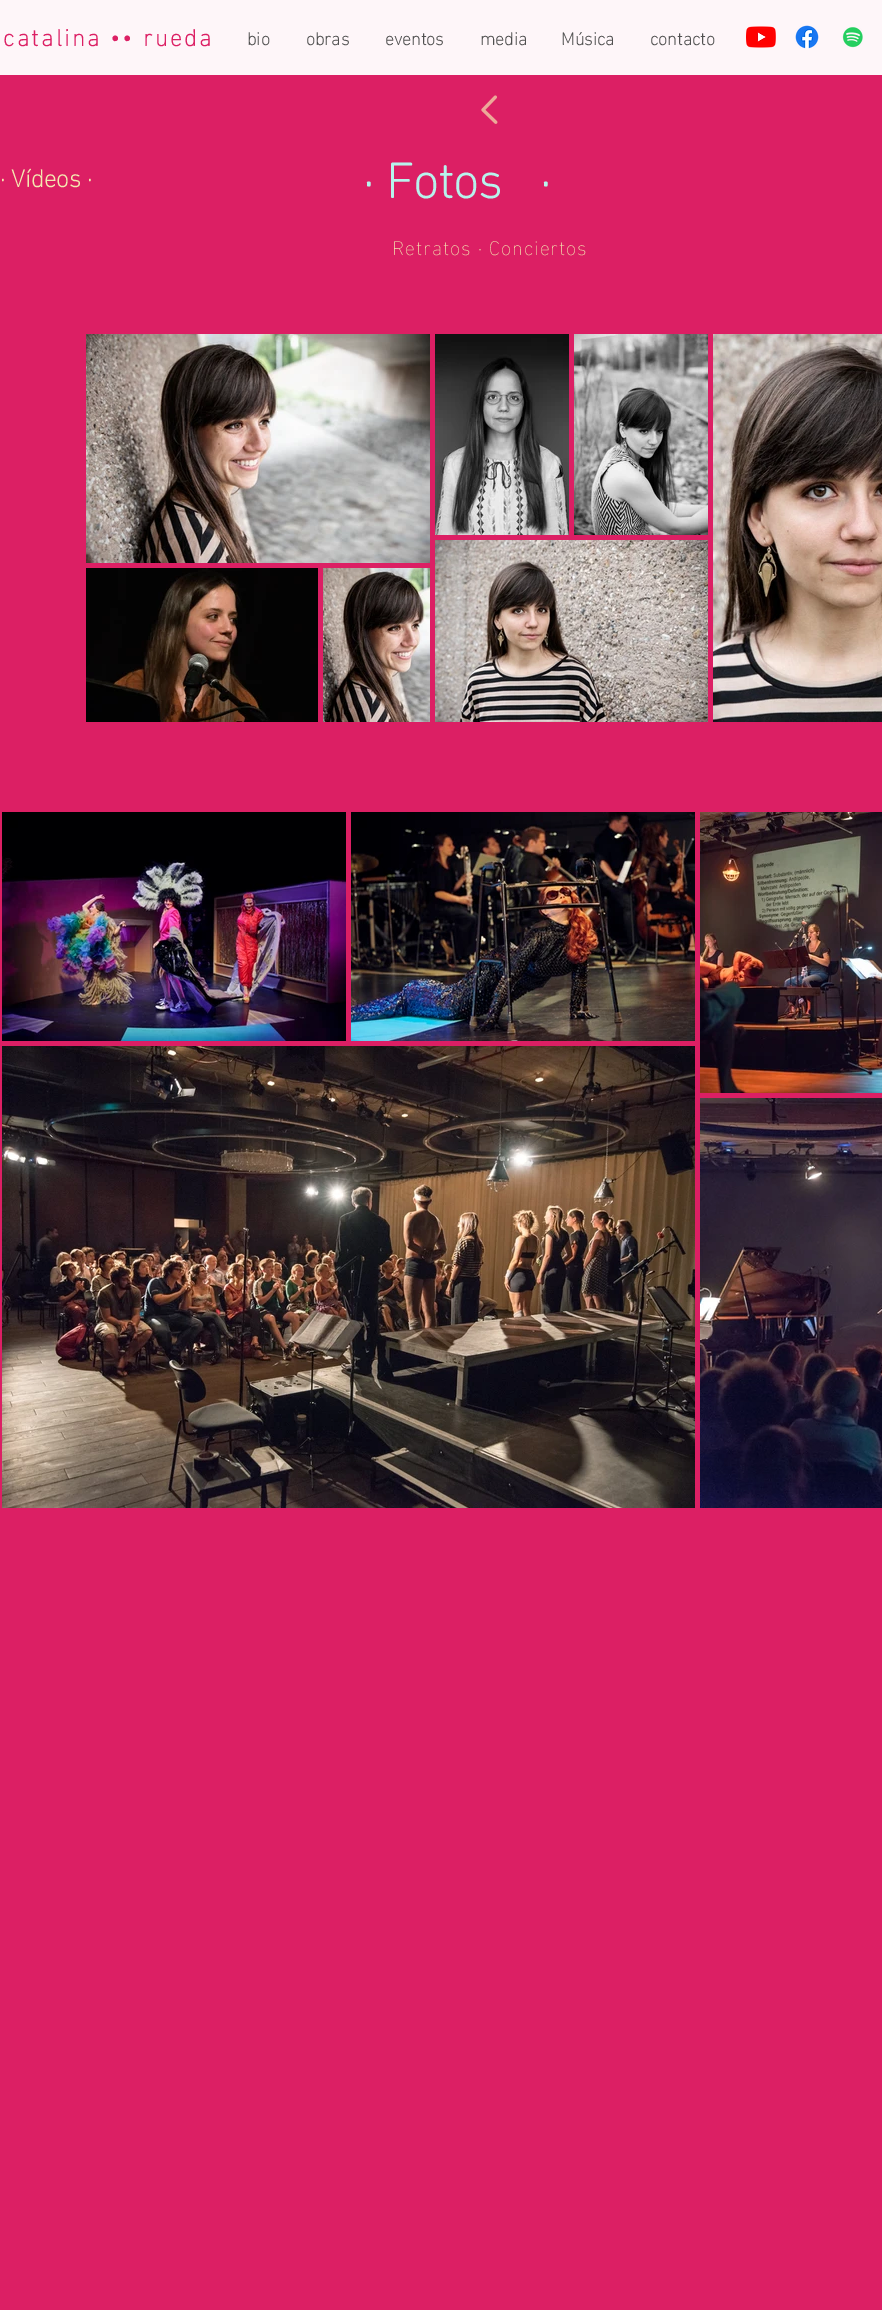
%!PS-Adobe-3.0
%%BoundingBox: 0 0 882 2310
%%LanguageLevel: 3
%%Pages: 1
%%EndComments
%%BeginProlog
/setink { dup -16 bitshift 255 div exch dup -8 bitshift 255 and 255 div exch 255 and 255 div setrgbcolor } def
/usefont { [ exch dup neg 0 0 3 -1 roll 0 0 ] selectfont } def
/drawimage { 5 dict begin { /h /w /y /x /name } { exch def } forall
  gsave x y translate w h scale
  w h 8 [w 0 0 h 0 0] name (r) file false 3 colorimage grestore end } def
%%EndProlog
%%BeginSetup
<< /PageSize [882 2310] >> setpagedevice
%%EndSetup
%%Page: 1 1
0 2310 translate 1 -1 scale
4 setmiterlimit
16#DC1F64 setink
0 0 882 2310 rectfill
16#FEF6F9 setink
0 0 882 75 rectfill
/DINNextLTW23-Bold 24 usefont
16#DC1F64 setink
3 46 moveto 2.4 0 (catalina •• rueda) ashow
/DINNextLTW23-Bold 18 usefont
16#505050 setink
[
    [(bio) 247 45]
    [(obras) 306 45]
    [(eventos) 385 45]
    [(media) 480 45]
    [(Música) 561 45]
    [(contacto) 650 45]
] { aload pop moveto show } forall
(img1.raw) 746 26 30 22 drawimage
(img2.raw) 795 25 24 24 drawimage
(img3.raw) 842 27 21 21 drawimage
(img4.raw) 481 95 17 29 drawimage
/DINNextLTW23-Bold 25 usefont
16#F4EAB1 setink
0 187 moveto (· Vídeos ·) show
/DINNextLTW23-Bold 50 usefont
16#B7F3EC setink
363 198 moveto (· Fotos) show
540 198 moveto (·) show
/DINNextLTW23-ExtraLight 20 usefont
16#F4EAB1 setink
392 255 moveto 1 0 (Retratos · Conciertos) ashow
(img5.raw) 86 334 344 229 drawimage
(img6.raw) 86 568 232 154 drawimage
(img7.raw) 323 568 107 154 drawimage
(img8.raw) 435 334 134 201 drawimage
(img9.raw) 574 334 134 201 drawimage
(img10.raw) 435 540 273 182 drawimage
(img11.raw) 713 334 169 388 drawimage
(img12.raw) 2 812 344 229 drawimage
(img13.raw) 351 812 344 229 drawimage
(img14.raw) 2 1046 693 462 drawimage
(img15.raw) 700 812 182 281 drawimage
(img16.raw) 700 1098 182 410 drawimage
showpage
%%EOF
